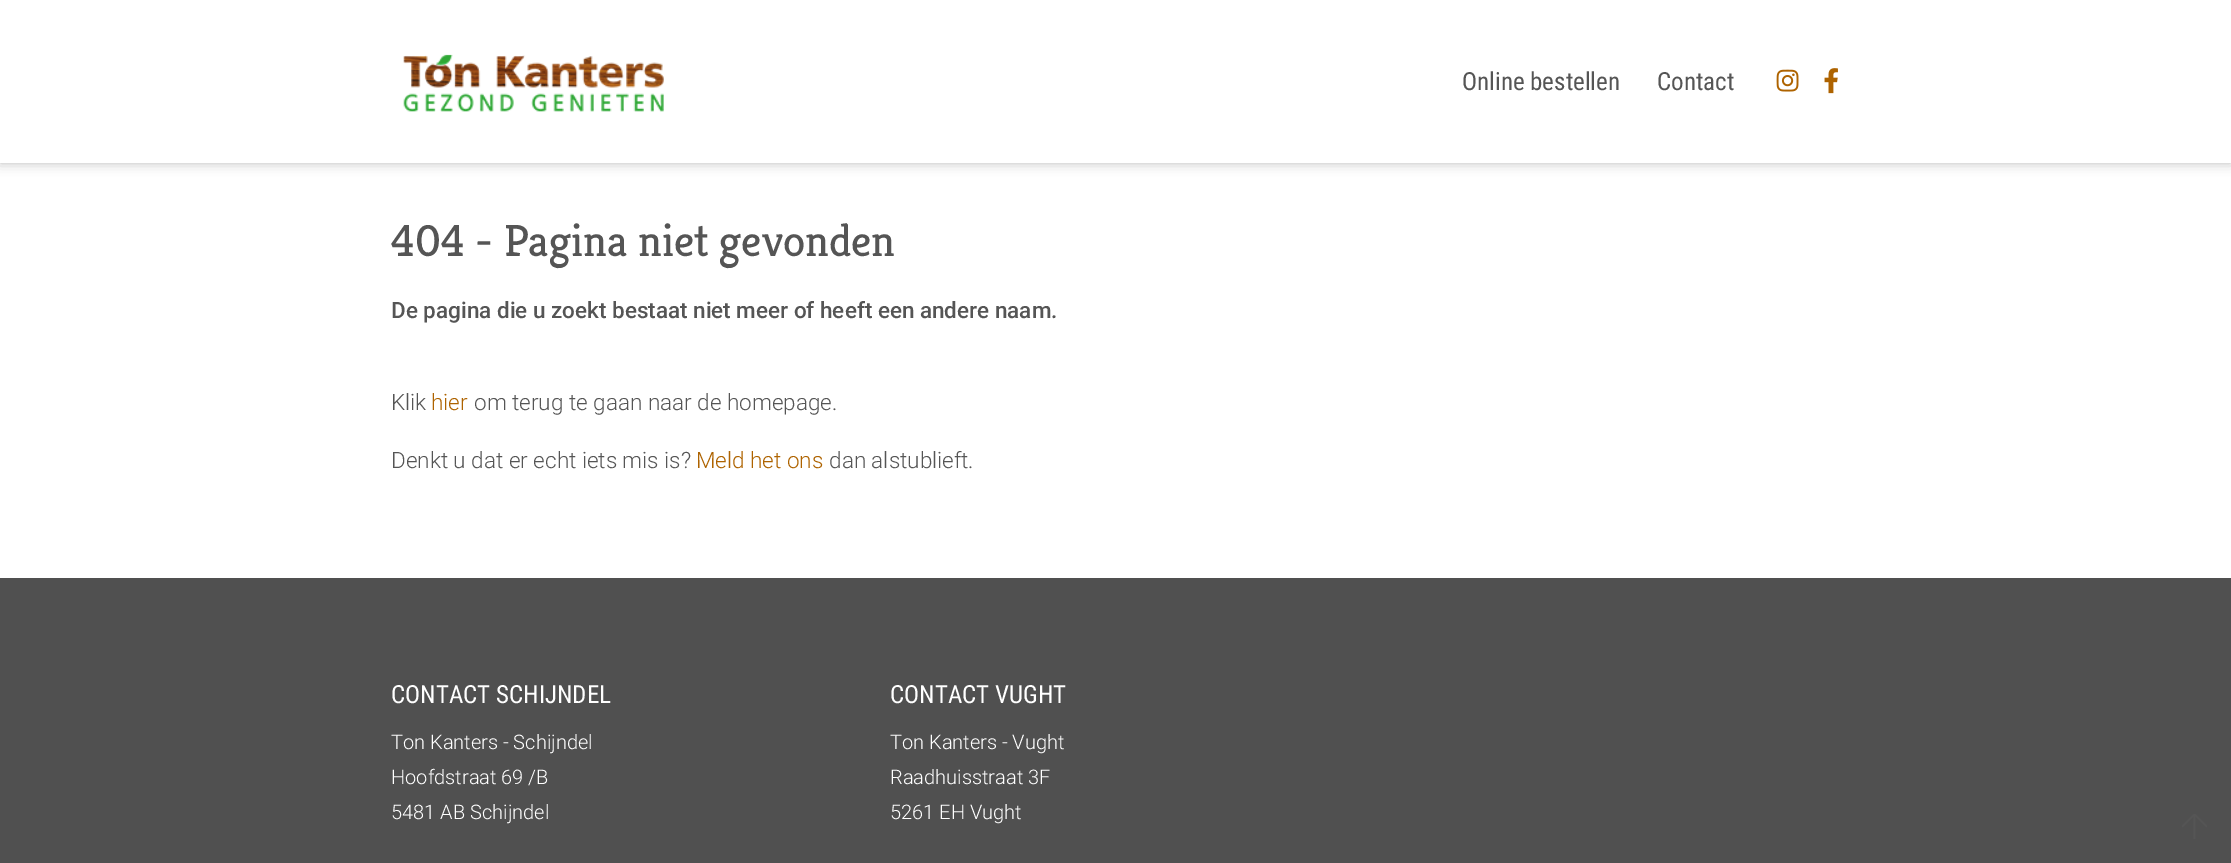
%!PS-Adobe-3.0
%%BoundingBox: 0 0 2231 863
%%LanguageLevel: 3
%%Pages: 1
%%EndComments
%%BeginProlog
/setink { dup -16 bitshift 255 div exch dup -8 bitshift 255 and 255 div exch 255 and 255 div setrgbcolor } def
/usefont { [ exch dup neg 0 0 3 -1 roll 0 0 ] selectfont } def
/setalpha { dup .setfillconstantalpha .setstrokeconstantalpha } def
/rrect { 5 dict begin { /r /h /w /y /x } { exch def } forall
  x r add y moveto x w add y 2 copy h add r arct x w add y h add x 1 index r arct
  x y h add x y r arct x y 2 copy exch w add exch r arct closepath end } def
/softshadow { 12 dict begin { /a /b /q /h /w /y /x } { exch def } forall gsave /was 0 def
  9 -2 -9 { dup b mul 4 div /e exch def 1 sub .425 mul 2.718 exch exp 1 add a .99 .min exch div /now exch def
    1 1 now sub 1 was sub div sub setalpha /was now def
    w h .min e 2 mul add 0 gt { x e sub y e sub w e 2 mul add h e 2 mul add
      q e add b .6 mul add w h .min 2 div e add .min 0 .max rrect fill } if } for grestore end } def
/drawimage { 5 dict begin { /h /w /y /x /name } { exch def } forall
  gsave x y translate w h scale
  w h 8 [w 0 0 h 0 0] name (r) file false 3 colorimage grestore end } def
%%EndProlog
%%BeginSetup
<< /PageSize [2231 863] /PageUsesTransparency true >> setpagedevice
%%EndSetup
%%Page: 1 1
0 .pushpdf14devicefilter
0 863 translate 1 -1 scale
4 setmiterlimit
16#FFFFFF setink
0 0 2231 863 rectfill
gsave
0 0 moveto 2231 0 lineto 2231 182 lineto 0 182 lineto closepath 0 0 moveto 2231 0 lineto 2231 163 lineto 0 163 lineto closepath eoclip newpath
16#BBBBBB setink
0 0 2231 163 0 6 1 softshadow
grestore
(img1.raw) 403 54 261 58 drawimage
/RobotoCondensed-Regular 25 usefont
16#555555 setink
1462 90 moveto (Online bestellen) show
1657 90 moveto (Contact) show
(img2.raw) 1776 69 23 23 drawimage
(img3.raw) 1824 68 14 26 drawimage
/Kreon-Regular 45 usefont
391 256 moveto (404 - Pagina niet gevonden) show
/Roboto-Medium 22.5 usefont
391 318 moveto (De pagina die u zoekt bestaat niet meer of heeft een andere naam.) show
/Roboto-Light 22.5 usefont
391 410 moveto (Klik) show
16#AE6300 setink
431 410 moveto (hier) show
16#555555 setink
474 410 moveto (om terug te gaan naar de homepage.) show
391 468 moveto (Denkt u dat er echt iets mis is?) show
16#AE6300 setink
696 468 moveto (Meld het ons) show
16#555555 setink
829 468 moveto (dan alstublieft.) show
16#505050 setink
0 578 2231 285 rectfill
/RobotoCondensed-Regular 25 usefont
16#FFFFFF setink
391 703 moveto (CONTACT SCHIJNDEL) show
/Roboto-Light 20 usefont
[
    [(Ton Kanters - Schijndel) 391 749]
    [(Hoofdstraat 69 /B) 391 784]
    [(5481 AB Schijndel) 391 819]
] { aload pop moveto show } forall
/RobotoCondensed-Regular 25 usefont
890 703 moveto (CONTACT VUGHT) show
/Roboto-Light 20 usefont
[
    [(Ton Kanters - Vught) 890 749]
    [(Raadhuisstraat 3F) 890 784]
    [(5261 EH Vught) 890 819]
] { aload pop moveto show } forall
(img4.raw) 2182 814 25 25 drawimage
.poppdf14devicefilter showpage
%%EOF
